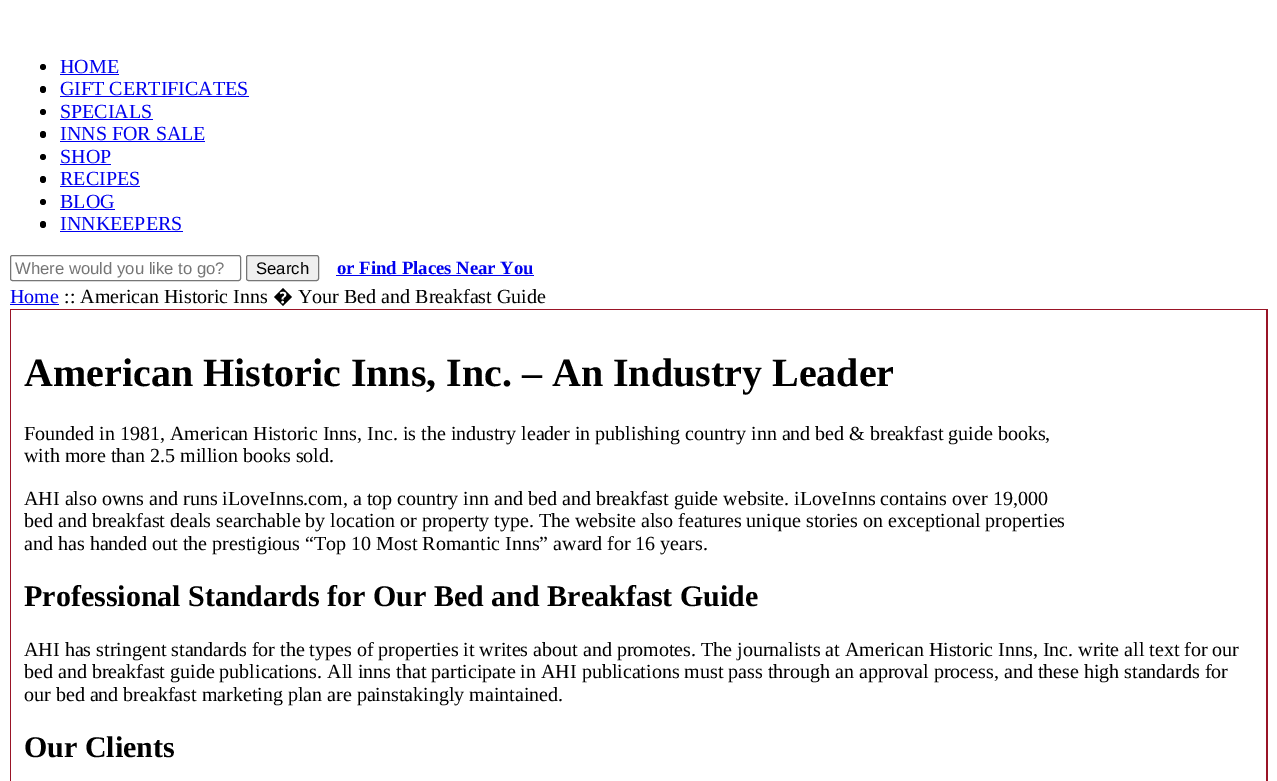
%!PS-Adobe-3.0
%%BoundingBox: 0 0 1277 781
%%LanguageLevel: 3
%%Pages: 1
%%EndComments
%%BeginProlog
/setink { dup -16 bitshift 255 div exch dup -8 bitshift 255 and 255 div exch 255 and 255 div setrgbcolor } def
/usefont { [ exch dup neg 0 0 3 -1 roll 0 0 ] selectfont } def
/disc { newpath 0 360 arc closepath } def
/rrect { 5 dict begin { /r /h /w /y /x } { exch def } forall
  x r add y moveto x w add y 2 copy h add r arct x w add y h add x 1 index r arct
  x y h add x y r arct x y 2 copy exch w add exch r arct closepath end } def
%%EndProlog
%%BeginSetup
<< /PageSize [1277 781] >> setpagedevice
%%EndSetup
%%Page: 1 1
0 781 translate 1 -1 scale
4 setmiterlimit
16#FFFFFF setink
0 0 1277 781 rectfill
16#000000 setink
43 67 3 disc fill
/LiberationSerif-Regular 20 usefont
16#0000EE setink
60 73 moveto (HOME) show
60 74 59 1 rectfill
16#000000 setink
40 86 6 7 3 rrect fill
16#0000EE setink
60 95 moveto (GIFT CERTIFICATES) show
60 96 189 1 rectfill
16#000000 setink
43 112 3 disc fill
16#0000EE setink
60 118 moveto (SPECIALS) show
60 119 93 1 rectfill
16#000000 setink
40 131 6 7 3 rrect fill
16#0000EE setink
60 140 moveto (INNS FOR SALE) show
60 141 145 1 rectfill
16#000000 setink
43 157 3 disc fill
16#0000EE setink
60 163 moveto (SHOP) show
60 164 51 1 rectfill
16#000000 setink
40 176 6 7 3 rrect fill
16#0000EE setink
60 185 moveto (RECIPES) show
60 186 80 1 rectfill
16#000000 setink
43 202 3 disc fill
16#0000EE setink
60 208 moveto (BLOG) show
60 209 55 1 rectfill
16#000000 setink
40 221 6 7 3 rrect fill
16#0000EE setink
60 230 moveto (INNKEEPERS) show
60 231 123 1 rectfill
16#767676 setink
10.5 255.5 230 25 2 rrect stroke
/LiberationSans-Regular 16.7 usefont
16#757575 setink
15 274 moveto (Where would you like to go?) show
16#EFEFEF setink
246.5 255.5 72 25 2 rrect gsave fill grestore
16#767676 setink
stroke
16#000000 setink
256 274 moveto (Search) show
/LiberationSerif-Bold 18.75 usefont
16#0000EE setink
337 274 moveto (or Find Places Near You) show
336 275 198 1 rectfill
/LiberationSerif-Regular 20 usefont
10 303 moveto (Home) show
10 304 49 1 rectfill
16#000000 setink
64 303 moveto (:: American Historic Inns) show
/NotoSans-Regular 20 usefont
273 303 moveto (�) show
/LiberationSerif-Regular 20 usefont
298 303 moveto (Your Bed and Breakfast Guide) show
16#991426 setink
10 309 1258 472 rectfill
16#FFFFFF setink
11 310 1255 471 rectfill
/LiberationSerif-Bold 40 usefont
16#000000 setink
24 386 moveto (American Historic Inns, Inc. – An Industry Leader) show
/LiberationSerif-Regular 20 usefont
[
    [(Founded in 1981, American Historic Inns, Inc. is the industry leader in publishing country inn and bed & breakfast guide books,) 24 440]
    [(with more than 2.5 million books sold.) 24 462]
    [(AHI also owns and runs iLoveInns.com, a top country inn and bed and breakfast guide website. iLoveInns contains over 19,000) 24 505]
    [(bed and breakfast deals searchable by location or property type. The website also features unique stories on exceptional properties) 24 527]
    [(and has handed out the prestigious “Top 10 Most Romantic Inns” award for 16 years.) 24 550]
] { aload pop moveto show } forall
/LiberationSerif-Bold 30 usefont
24 606 moveto (Professional Standards for Our Bed and Breakfast Guide) show
/LiberationSerif-Regular 20 usefont
[
    [(AHI has stringent standards for the types of properties it writes about and promotes. The journalists at American Historic Inns, Inc. write all text for our) 24 656]
    [(bed and breakfast guide publications. All inns that participate in AHI publications must pass through an approval process, and these high standards for) 24 678]
    [(our bed and breakfast marketing plan are painstakingly maintained.) 24 701]
] { aload pop moveto show } forall
/LiberationSerif-Bold 30 usefont
24 757 moveto (Our Clients) show
showpage
%%EOF
